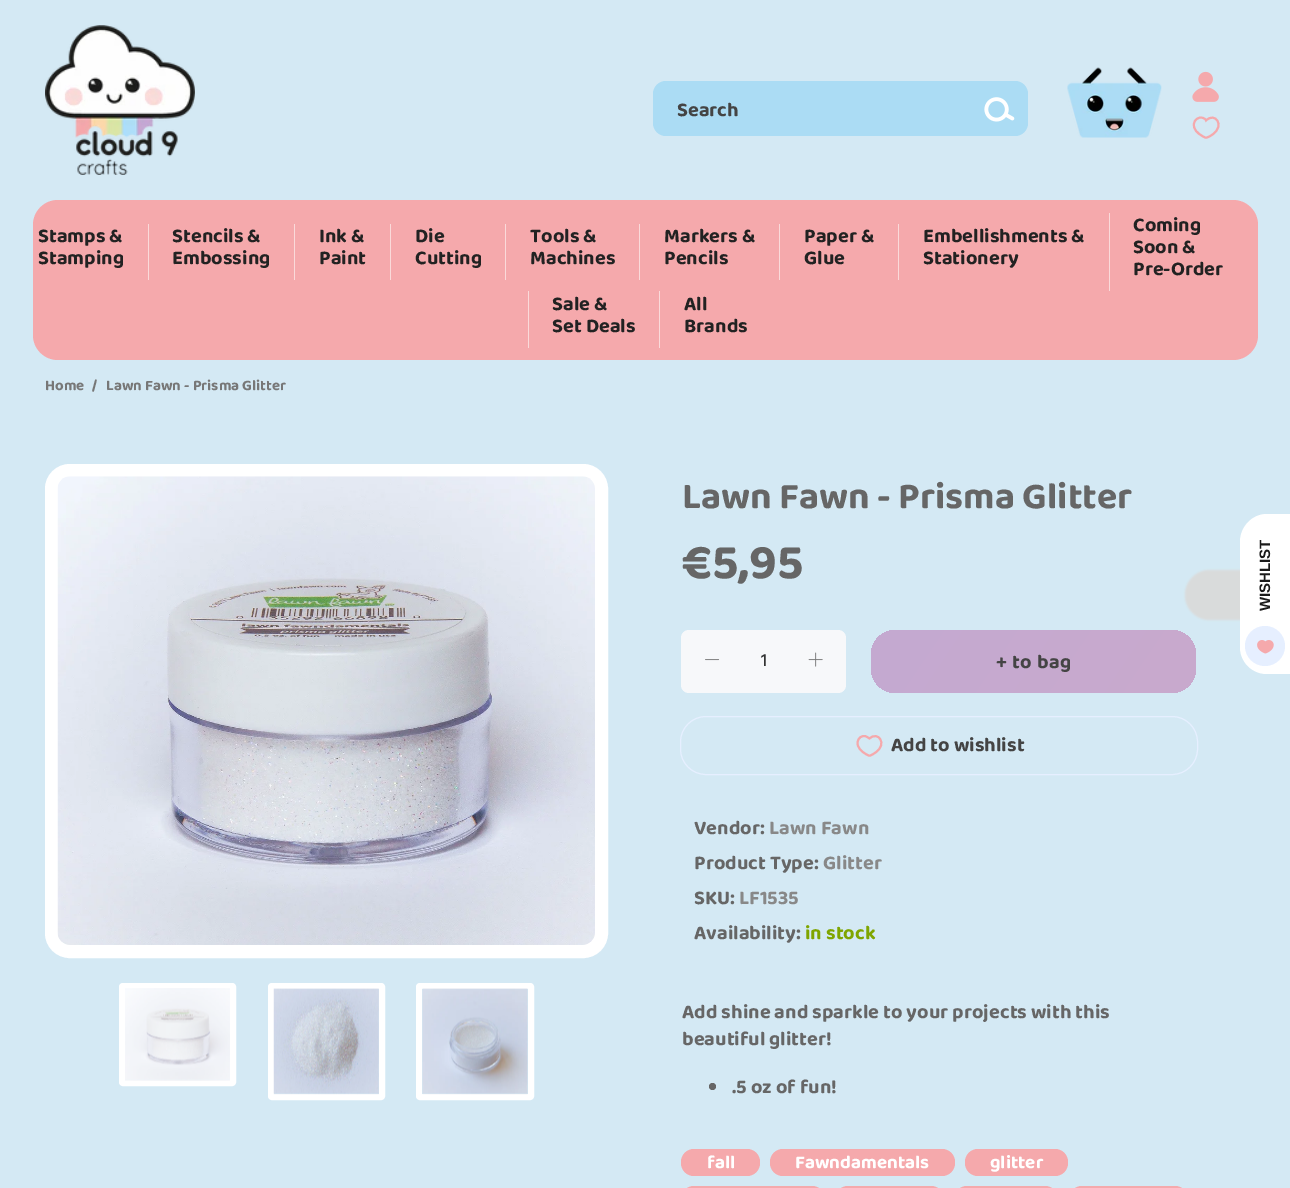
%!PS-Adobe-3.0
%%BoundingBox: 0 0 1290 1188
%%LanguageLevel: 3
%%Pages: 1
%%EndComments
%%BeginProlog
/setink { dup -16 bitshift 255 div exch dup -8 bitshift 255 and 255 div exch 255 and 255 div setrgbcolor } def
/usefont { [ exch dup neg 0 0 3 -1 roll 0 0 ] selectfont } def
/setalpha { dup .setfillconstantalpha .setstrokeconstantalpha } def
/disc { newpath 0 360 arc closepath } def
/rrect { 5 dict begin { /r /h /w /y /x } { exch def } forall
  x r add y moveto x w add y 2 copy h add r arct x w add y h add x 1 index r arct
  x y h add x y r arct x y 2 copy exch w add exch r arct closepath end } def
/softshadow { 12 dict begin { /a /b /q /h /w /y /x } { exch def } forall gsave /was 0 def
  9 -2 -9 { dup b mul 4 div /e exch def 1 sub .425 mul 2.718 exch exp 1 add a .99 .min exch div /now exch def
    1 1 now sub 1 was sub div sub setalpha /was now def
    w h .min e 2 mul add 0 gt { x e sub y e sub w e 2 mul add h e 2 mul add
      q e add b .6 mul add w h .min 2 div e add .min 0 .max rrect fill } if } for grestore end } def
/drawimage { 5 dict begin { /h /w /y /x /name } { exch def } forall
  gsave x y translate w h scale
  w h 8 [w 0 0 h 0 0] name (r) file false 3 colorimage grestore end } def
%%EndProlog
%%BeginSetup
<< /PageSize [1290 1188] /PageUsesTransparency true >> setpagedevice
%%EndSetup
%%Page: 1 1
0 .pushpdf14devicefilter
0 1188 translate 1 -1 scale
4 setmiterlimit
16#D4E9F4 setink
0 0 1290 1188 rectfill
(img1.raw) 45 25 150 150 drawimage
16#ABDCF4 setink
653 81 375 55 13 rrect fill
(img2.raw) 984 97 31 25 drawimage
/Baloo2-Bold 20 usefont
16#444444 setink
677 116 moveto (Search) show
(img3.raw) 1067 67 95 71 drawimage
(img4.raw) 1192 71 27 31 drawimage
16#F5A9AC setink
2 setlinewidth
1205.5 119.5 moveto 1206 120.5 lineto 1215 111.5 1225.5 125.5 1212.5 134.5 curveto 1211 135.5 1208.5 137.5 1206 137.5 curveto 1204 137.5 1201.5 135.5 1200 134.5 curveto 1186.5 125.5 1198 112.5 1205.5 119.5 curveto closepath stroke
33 200 1225 160 25 rrect fill
16#222222 setink
38 242 moveto (Stamps &) show
38 264 moveto (Stamping) show
16#FADADA setink
148 224 1 56 rectfill
16#222222 setink
172 242 moveto (Stencils &) show
172 264 moveto (Embossing) show
16#FADADA setink
294 224 1 56 rectfill
16#222222 setink
319 242 moveto (Ink &) show
319 264 moveto (Paint) show
16#FADADA setink
390 224 1 56 rectfill
16#222222 setink
415 242 moveto (Die) show
415 264 moveto (Cutting) show
16#FADADA setink
505 224 1 56 rectfill
16#222222 setink
530 242 moveto (Tools &) show
530 264 moveto (Machines) show
16#FADADA setink
639 224 1 56 rectfill
16#222222 setink
664 242 moveto (Markers &) show
664 264 moveto (Pencils) show
16#FADADA setink
779 224 1 56 rectfill
16#222222 setink
804 242 moveto (Paper &) show
804 264 moveto (Glue) show
16#FADADA setink
898 224 1 56 rectfill
16#222222 setink
923 242 moveto (Embellishments &) show
923 264 moveto (Stationery) show
16#FADADA setink
1109 213 1 78 rectfill
16#222222 setink
[
    [(Coming) 1133 231]
    [(Soon &) 1133 253]
    [(Pre-Order) 1133 275]
] { aload pop moveto show } forall
16#FADADA setink
528 291 1 57 rectfill
16#222222 setink
552 310 moveto (Sale &) show
552 332 moveto (Set Deals) show
16#FADADA setink
659 291 1 57 rectfill
16#222222 setink
684 310 moveto (All) show
684 332 moveto (Brands) show
/Baloo2-Bold 15 usefont
16#777777 setink
[
    [(Home) 45 390]
    [(/) 92 390]
    [(Lawn Fawn - Prisma Glitter) 106 390]
] { aload pop moveto show } forall
16#FFFFFF setink
51.5 470.5 550 481 18.5 rrect gsave fill grestore
13 setlinewidth
stroke
(img5.raw) 57 476 538 469 drawimage
6 setlinewidth
122 986 111 97 1 rrect stroke
(img6.raw) 125 988 105 93 drawimage
271 986 111 111 1 rrect stroke
(img7.raw) 273 988 106 107 drawimage
419 986 112 111 1 rrect stroke
(img8.raw) 422 988 106 107 drawimage
/Baloo2-Bold 37.5 usefont
16#666666 setink
682 508 moveto (Lawn Fawn - Prisma Glitter) show
/Baloo2-Bold 50 usefont
682 578 moveto (€5,95) show
16#F7F8FA setink
681 630 165 63 8 rrect fill
(img9.raw) 705 659 15 2 drawimage
/Hind-Medium 18 usefont
16#333333 setink
761 666 moveto (1) show
(img10.raw) 808 652 15 15 drawimage
gsave 871 630 325 63 25 rrect clip newpath
<< /ShadingType 2 /ColorSpace /DeviceRGB /Coords [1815 -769 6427 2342] /Extend [true true] /Function << /FunctionType 3 /Domain [0 1] /Functions [<< /FunctionType 2 /Domain [0 1] /C0 [0.769 0.663 0.82] /C1 [0.961 0.663 0.675] /N 1 >> << /FunctionType 2 /Domain [0 1] /C0 [0.961 0.663 0.675] /C1 [0.988 0.847 0.667] /N 1 >>] /Bounds [0.5] /Encode [0 1 0 1] >> >> shfill grestore
/Baloo2-Bold 20 usefont
16#444444 setink
996 668 moveto 0.5 0 (+ to bag) ashow
16#E6EFFF setink
1 setlinewidth
680.5 716.5 517 58 25.5 rrect stroke
16#F5A9AC setink
2 setlinewidth
868.5 738 moveto 869.5 738.5 lineto 878 730.5 888 744 875.5 752.5 curveto 874 753.5 871.5 755.5 869.5 755.5 curveto 867.5 755.5 865 753.5 863.5 752.5 curveto 850.5 743.5 861.5 731 868.5 738 curveto closepath stroke
16#444444 setink
891 751 moveto (Add to wishlist) show
16#666666 setink
694 834 moveto (Vendor:) show
16#888888 setink
769 834 moveto (Lawn Fawn) show
16#666666 setink
694 869 moveto (Product Type:) show
16#888888 setink
823 869 moveto (Glitter) show
16#666666 setink
694 904 moveto (SKU:) show
16#888888 setink
739 904 moveto (LF1535) show
16#666666 setink
694 939 moveto (Availability:) show
16#7FA500 setink
805 939 moveto (in stock) show
16#666666 setink
682 1018 moveto (Add shine and sparkle to your projects with this) show
682 1045 moveto (beautiful glitter!) show
712.5 1086.5 3.5 disc fill
732 1093 moveto (.5 oz of fun!) show
16#F5A9AC setink
681 1149 79 27 13 rrect fill
/Baloo2-Bold 18.75 usefont
16#FFFFFF setink
707 1168 moveto (fall) show
16#F5A9AC setink
770 1149 185 27 13 rrect fill
16#FFFFFF setink
795 1168 moveto (Fawndamentals) show
16#F5A9AC setink
965 1149 103 27 13 rrect fill
16#FFFFFF setink
990 1168 moveto (glitter) show
16#F5A9AC setink
681 1186 144 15 13 rrect fill
835 1186 109 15 13 rrect fill
954 1186 104 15 13 rrect fill
1069 1186 119 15 13 rrect fill
16#DADADA setink
1185 570 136 50 28 1 1 softshadow
16#FFFFFF setink
1240 647 moveto 1240 542 lineto 1240 527 1252 514 1267 514 curveto 1290 514 lineto 1290 674 lineto 1267 674 lineto 1252 674 1240 662 1240 647 curveto closepath fill
/LiberationSans-Bold 15 usefont
16#1A1A1A setink
gsave 1270 611 translate -90 rotate 0 0 moveto (WISHLIST) show grestore
16#E6EFFF setink
1265 646 20 disc fill
(img11.raw) 1257 640 17 14 drawimage
.poppdf14devicefilter showpage
%%EOF
